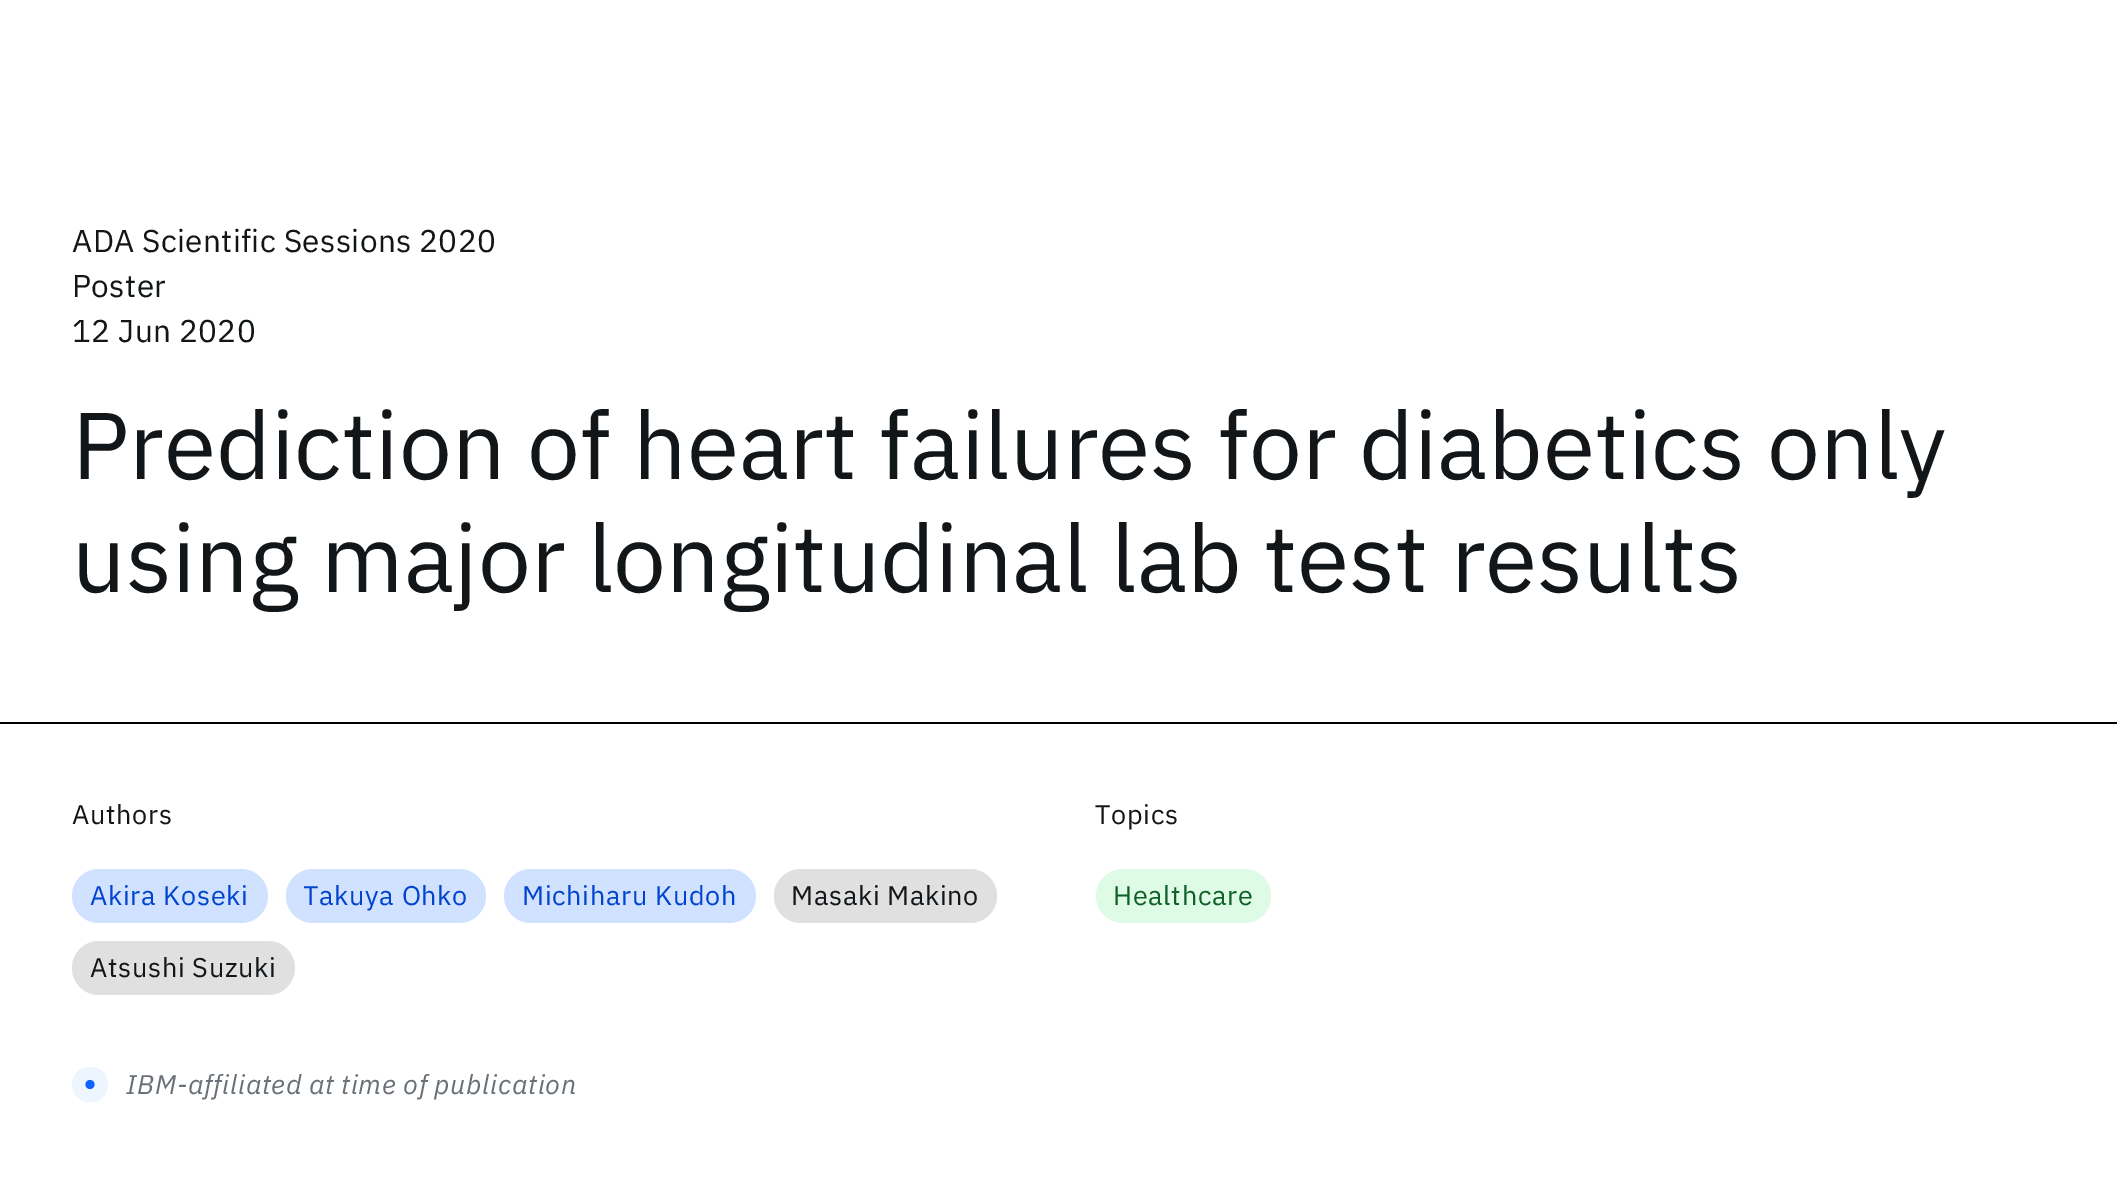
%!PS-Adobe-3.0
%%BoundingBox: 0 0 2117 1179
%%LanguageLevel: 3
%%Pages: 1
%%EndComments
%%BeginProlog
/setink { dup -16 bitshift 255 div exch dup -8 bitshift 255 and 255 div exch 255 and 255 div setrgbcolor } def
/usefont { [ exch dup neg 0 0 3 -1 roll 0 0 ] selectfont } def
/disc { newpath 0 360 arc closepath } def
/rrect { 5 dict begin { /r /h /w /y /x } { exch def } forall
  x r add y moveto x w add y 2 copy h add r arct x w add y h add x 1 index r arct
  x y h add x y r arct x y 2 copy exch w add exch r arct closepath end } def
%%EndProlog
%%BeginSetup
<< /PageSize [2117 1179] >> setpagedevice
%%EndSetup
%%Page: 1 1
0 1179 translate 1 -1 scale
4 setmiterlimit
16#FFFFFF setink
0 0 2117 1179 rectfill
16#000000 setink
0 722 2117 2 rectfill
/IBMPlexSans-Regular 31.5 usefont
16#121619 setink
72 252 moveto 0.35 0 (ADA Scientific Sessions 2020) ashow
72 297 moveto 0.35 0 (Poster) ashow
72 342 moveto 0.35 0 (12 Jun 2020) ashow
/IBMPlexSans-Regular 94.5 usefont
72 479 moveto (Prediction of heart failures for diabetics only) show
72 592 moveto (using major longitudinal lab test results) show
/IBMPlexSans-Regular 27 usefont
72 824 moveto 0.7 0 (Authors) ashow
16#D0E2FF setink
72 869 196 54 27 rrect fill
16#0043CE setink
90 905 moveto 0.7 0 (Akira Koseki) ashow
16#D0E2FF setink
286 869 200 54 27 rrect fill
gsave
304 878 164 36 rectclip
16#0043CE setink
303 905 moveto 0.7 0 (Takuya Ohko) ashow
grestore
504 869 252 54 27 rrect fill
16#0043CE setink
522 905 moveto 0.7 0 (Michiharu Kudoh) ashow
16#E0E0E0 setink
774 869 223 54 27 rrect fill
16#121619 setink
791 905 moveto 0.7 0 (Masaki Makino) ashow
16#E0E0E0 setink
72 941 223 54 27 rrect fill
16#121619 setink
90 977 moveto 0.7 0 (Atsushi Suzuki) ashow
gsave
72 1067 36 36 rectclip
16#EDF5FF setink
90 1084.5 18 disc fill
grestore
16#0F62FE setink
90 1084.5 4.5 disc fill
/IBMPlexSans-Italic 27 usefont
16#697077 setink
126 1094 moveto -0.5 0 32 0.7 0 (IBM-affiliated at time of publication) awidthshow
/IBMPlexSans-Regular 27 usefont
16#121619 setink
1095 824 moveto 0.7 0 (Topics) ashow
16#DEFBE6 setink
1096 869 175 54 27 rrect fill
16#0E6027 setink
1113 905 moveto 0.7 0 (Healthcare) ashow
showpage
%%EOF
